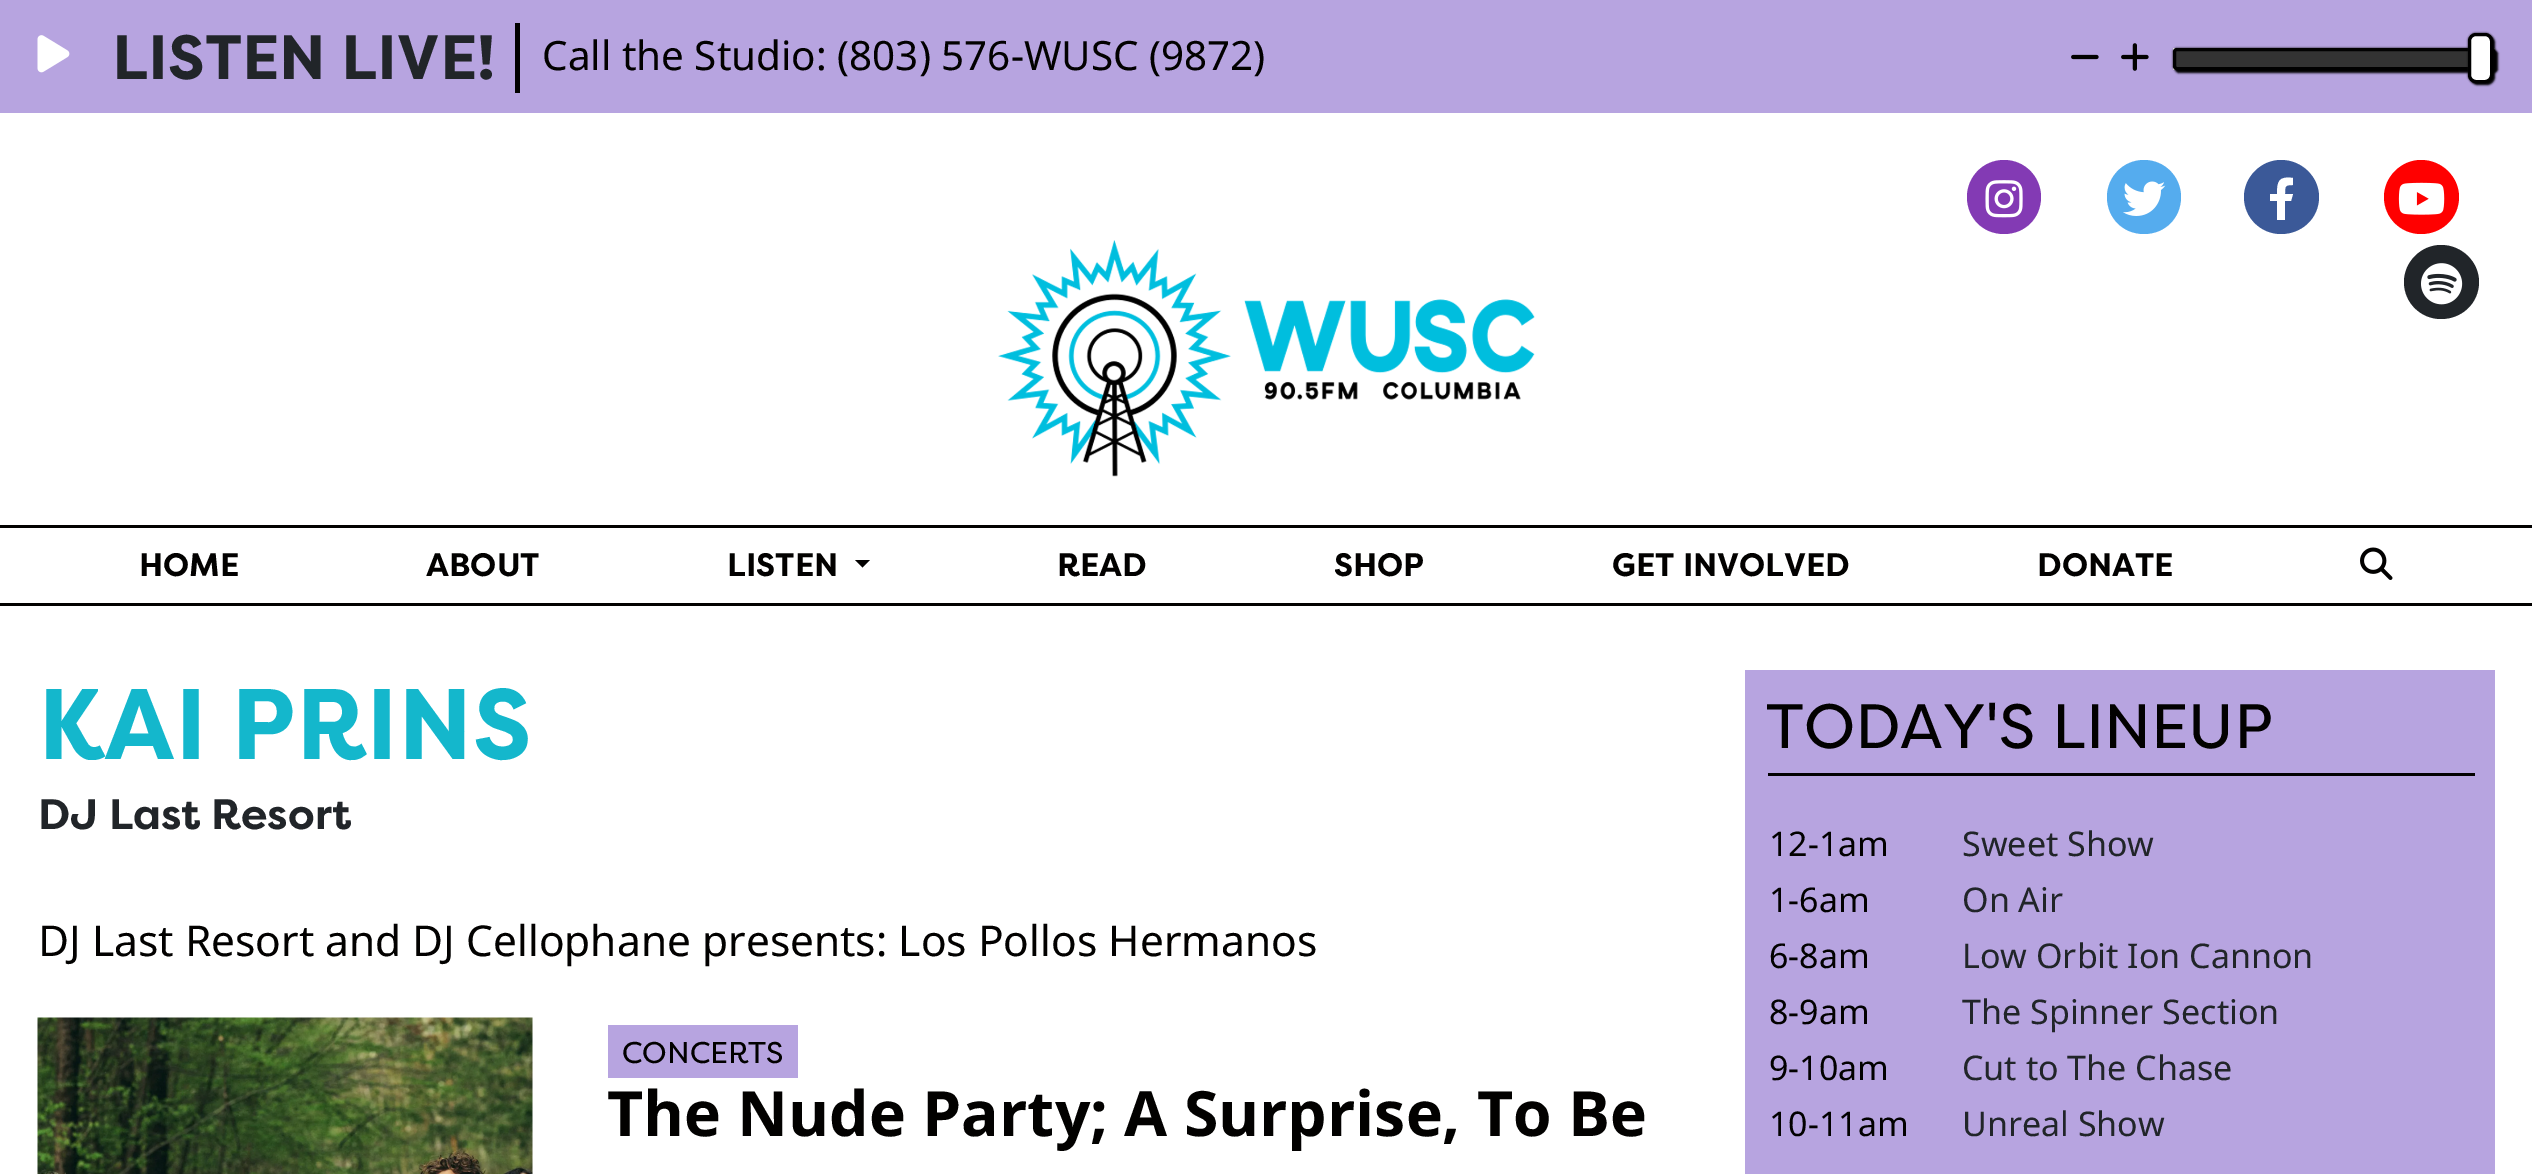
%!PS-Adobe-3.0
%%BoundingBox: 0 0 2532 1174
%%LanguageLevel: 3
%%Pages: 1
%%EndComments
%%BeginProlog
/setink { dup -16 bitshift 255 div exch dup -8 bitshift 255 and 255 div exch 255 and 255 div setrgbcolor } def
/usefont { [ exch dup neg 0 0 3 -1 roll 0 0 ] selectfont } def
/setalpha { dup .setfillconstantalpha .setstrokeconstantalpha } def
/rrect { 5 dict begin { /r /h /w /y /x } { exch def } forall
  x r add y moveto x w add y 2 copy h add r arct x w add y h add x 1 index r arct
  x y h add x y r arct x y 2 copy exch w add exch r arct closepath end } def
/softshadow { 12 dict begin { /a /b /q /h /w /y /x } { exch def } forall gsave /was 0 def
  9 -2 -9 { dup b mul 4 div /e exch def 1 sub .425 mul 2.718 exch exp 1 add a .99 .min exch div /now exch def
    1 1 now sub 1 was sub div sub setalpha /was now def
    w h .min e 2 mul add 0 gt { x e sub y e sub w e 2 mul add h e 2 mul add
      q e add b .6 mul add w h .min 2 div e add .min 0 .max rrect fill } if } for grestore end } def
/drawimage { 5 dict begin { /h /w /y /x /name } { exch def } forall
  gsave x y translate w h scale
  w h 8 [w 0 0 h 0 0] name (r) file false 3 colorimage grestore end } def
%%EndProlog
%%BeginSetup
<< /PageSize [2532 1174] /PageUsesTransparency true >> setpagedevice
%%EndSetup
%%Page: 1 1
0 .pushpdf14devicefilter
0 1174 translate 1 -1 scale
4 setmiterlimit
16#FFFFFF setink
0 0 2532 1174 rectfill
16#B7A4E0 setink
0 0 2532 113 rectfill
(img1.raw) 37 35 33 38 drawimage
16#020100 setink
515 23 5 70 rectfill
/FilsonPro-Bold 62.5 usefont
16#212529 setink
112 79 moveto (LISTEN LIVE!) show
/NotoSans-Regular 40.4 usefont
16#020100 setink
542 70 moveto (Call the Studio: \(803\) 576-WUSC \(9872\)) show
(img2.raw) 2071 54 28 6 drawimage
(img3.raw) 2121 43 28 28 drawimage
16#FFFFFF setink
2173 48 322 22 rectfill
16#0D0D0D setink
2173 48 322 22 4 1 1 softshadow
16#000000 setink
2175 50 323 23 4 1 1 softshadow
16#333333 setink
2174.5 49.5 319 19 2.5 rrect gsave fill grestore
16#010101 setink
3 setlinewidth
stroke
16#0D0D0D setink
2468 33 25 50 8 1 1 softshadow
16#000000 setink
2470 35 25 50 8 1 1 softshadow
16#FFFFFF setink
2469.5 34.5 22 47 6.5 rrect gsave fill grestore
16#000000 setink
stroke
(img4.raw) 998 240 537 237 drawimage
16#833AB4 setink
2004 234 moveto 2025 234 2041 218 2041 197 curveto 2041 177 2025 160 2004 160 curveto 1983 160 1967 177 1967 197 curveto 1967 218 1983 234 2004 234 curveto closepath fill
(img5.raw) 1985 180 38 38 drawimage
16#55ACEE setink
2144 234 moveto 2165 234 2181 218 2181 197 curveto 2181 177 2165 160 2144 160 curveto 2123 160 2107 177 2107 197 curveto 2107 218 2123 234 2144 234 curveto closepath fill
(img6.raw) 2123 181 43 35 drawimage
16#3B5998 setink
2281 234 moveto 2302 234 2319 218 2319 197 curveto 2319 177 2302 160 2281 160 curveto 2261 160 2244 177 2244 197 curveto 2244 218 2261 234 2281 234 curveto closepath fill
16#FFFFFF setink
2291 201 moveto 2293 194 lineto 2285 194 lineto 2285 186 2285 185 2293 185 curveto 2293 178 lineto 2279 176 2277 181 2277 194 curveto 2270 194 lineto 2270 201 lineto 2277 201 lineto 2277 220 lineto 2285 220 lineto 2285 201 lineto closepath fill
16#FF0000 setink
2421 234 moveto 2442 234 2459 218 2459 197 curveto 2459 177 2442 160 2421 160 curveto 2401 160 2384 177 2384 197 curveto 2384 218 2401 234 2421 234 curveto closepath fill
(img7.raw) 2398 182 47 33 drawimage
16#212529 setink
2441 319 moveto 2462 319 2479 303 2479 282 curveto 2479 262 2462 245 2441 245 curveto 2421 245 2404 262 2404 282 curveto 2404 303 2421 319 2441 319 curveto closepath fill
(img8.raw) 2421 263 42 42 drawimage
16#020100 setink
0 525 2532 3 rectfill
0 603 2532 3 rectfill
/FilsonPro-Bold 32.5 usefont
[
    [(HOME) 139 576]
    [(ABOUT) 426 576]
    [(LISTEN) 727 576]
] { aload pop moveto show } forall
855 560 moveto 870 560 lineto 862.5 567.5 lineto closepath fill
[
    [(READ) 1057 576]
    [(SHOP) 1334 576]
    [(GET INVOLVED) 1612 576]
    [(DONATE) 2037 576]
] { aload pop moveto show } forall
(img9.raw) 2360 547 33 33 drawimage
/FilsonPro-Bold 100 usefont
16#14B7CC setink
38 759 moveto (KAI PRINS) show
/FilsonPro-Bold 42.5 usefont
16#212529 setink
38 829 moveto (DJ Last Resort) show
/NotoSans-Regular 42.5 usefont
16#020100 setink
38 956 moveto (DJ Last Resort and DJ Cellophane presents: Los Pollos Hermanos) show
(img10.raw) 37 1017 496 157 drawimage
16#B7A4E0 setink
608 1025 190 53 rectfill
/FilsonPro-Regular 30 usefont
16#020100 setink
622 1063 moveto (CONCERTS) show
/NotoSans-Bold 62.5 usefont
607 1136 moveto (The Nude Party; A Surprise, To Be) show
16#B7A4E0 setink
1745 670 750 504 rectfill
/FilsonPro-Regular 62.5 usefont
16#020100 setink
1766 748 moveto (TODAY'S LINEUP) show
1768 773 707 3 rectfill
/NotoSans-Regular 34 usefont
1769 856 moveto (12-1am) show
16#212529 setink
1962 856 moveto (Sweet Show) show
16#020100 setink
1769 912 moveto (1-6am) show
16#212529 setink
1962 912 moveto (On Air) show
16#020100 setink
1769 968 moveto (6-8am) show
16#212529 setink
1962 968 moveto (Low Orbit Ion Cannon) show
16#020100 setink
1769 1024 moveto (8-9am) show
16#212529 setink
1962 1024 moveto (The Spinner Section) show
16#020100 setink
1769 1080 moveto (9-10am) show
16#212529 setink
1962 1080 moveto (Cut to The Chase) show
16#020100 setink
1769 1136 moveto (10-11am) show
16#212529 setink
1962 1136 moveto (Unreal Show) show
.poppdf14devicefilter showpage
%%EOF
